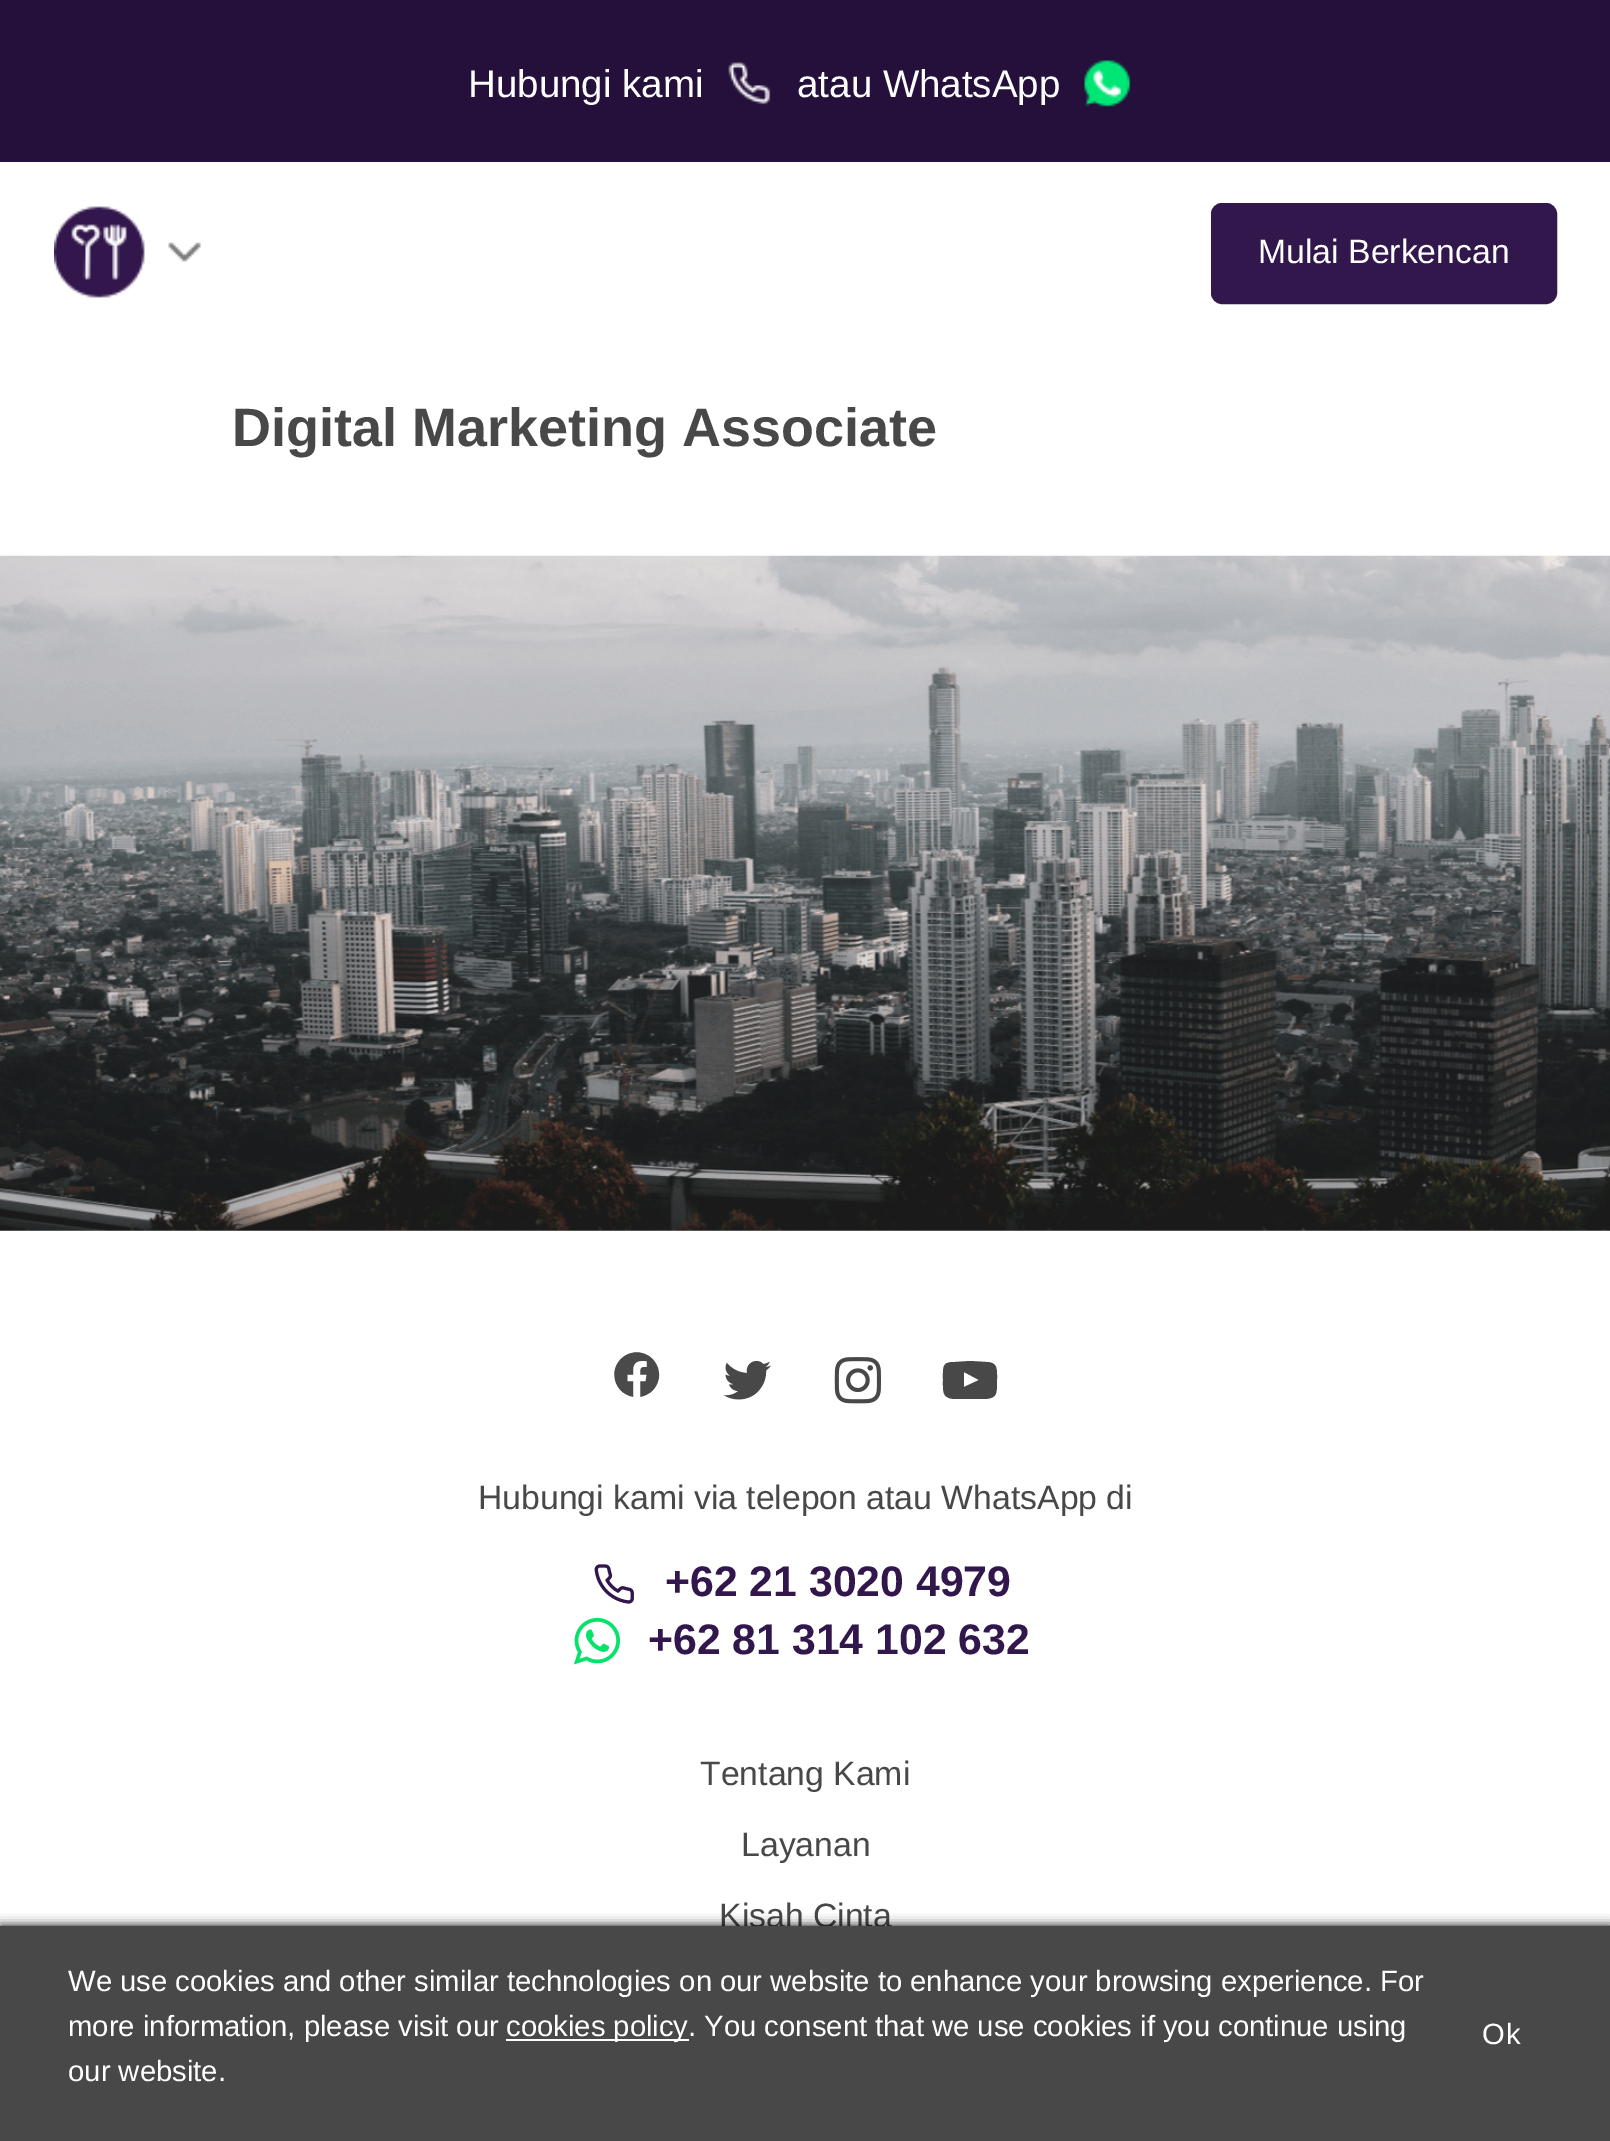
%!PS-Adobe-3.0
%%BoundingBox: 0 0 1610 2141
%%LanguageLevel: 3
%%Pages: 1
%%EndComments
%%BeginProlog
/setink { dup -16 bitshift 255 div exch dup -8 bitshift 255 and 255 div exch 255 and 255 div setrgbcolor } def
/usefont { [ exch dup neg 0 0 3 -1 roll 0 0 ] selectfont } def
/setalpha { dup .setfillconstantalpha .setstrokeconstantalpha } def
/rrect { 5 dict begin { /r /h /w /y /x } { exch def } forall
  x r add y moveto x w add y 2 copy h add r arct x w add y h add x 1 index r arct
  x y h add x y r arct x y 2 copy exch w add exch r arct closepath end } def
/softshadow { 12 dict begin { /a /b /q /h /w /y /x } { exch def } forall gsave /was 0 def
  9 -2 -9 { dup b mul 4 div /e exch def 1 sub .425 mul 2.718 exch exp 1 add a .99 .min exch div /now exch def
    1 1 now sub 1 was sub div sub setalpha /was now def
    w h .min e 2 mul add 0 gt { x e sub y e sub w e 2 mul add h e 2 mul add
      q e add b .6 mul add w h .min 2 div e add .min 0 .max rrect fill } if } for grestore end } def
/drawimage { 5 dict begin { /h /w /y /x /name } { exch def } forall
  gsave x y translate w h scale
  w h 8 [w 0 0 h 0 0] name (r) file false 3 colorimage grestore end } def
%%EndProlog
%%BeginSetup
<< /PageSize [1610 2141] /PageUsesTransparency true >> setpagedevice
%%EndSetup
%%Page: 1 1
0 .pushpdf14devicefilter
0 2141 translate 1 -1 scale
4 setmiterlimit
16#FFFFFF setink
0 0 1610 2141 rectfill
16#250F3B setink
0 0 1610 162 rectfill
/LiberationSans-Regular 38.5 usefont
16#FFFFFF setink
468 97 moveto (Hubungi kami) show
(img1.raw) 728 62 43 43 drawimage
797 97 moveto (atau WhatsApp) show
(img2.raw) 1084 60 47 47 drawimage
(img3.raw) 54 206 147 92 drawimage
16#32174D setink
1212 204 344 99 10 rrect gsave fill grestore
2 setlinewidth
stroke
/LiberationSans-Regular 33.75 usefont
16#FFFFFF setink
1258 263 moveto (Mulai Berkencan) show
/LiberationSans-Bold 54 usefont
16#484848 setink
232 446 moveto (Digital Marketing Associate) show
(img4.raw) 0 555 1610 676 drawimage
(img5.raw) 614 1352 46 45 drawimage
(img6.raw) 723 1360 48 40 drawimage
(img7.raw) 834 1357 48 47 drawimage
964 1387 moveto 979 1380 lineto 964 1372 lineto closepath 970 1361 moveto 986 1362 lineto 998 1362 997 1369 997 1380 curveto 997 1394 997 1398 985 1399 curveto 954 1399 lineto 942 1398 943 1392 943 1380 curveto 943 1366 942 1362 955 1362 curveto closepath fill
/LiberationSans-Regular 33.75 usefont
478 1509 moveto (Hubungi kami via telepon atau WhatsApp di) show
(img8.raw) 594 1564 40 40 drawimage
/LiberationSans-Bold 42.75 usefont
16#32174D setink
665 1596 moveto (+62 21 3020 4979) show
(img9.raw) 573 1617 48 48 drawimage
648 1654 moveto (+62 81 314 102 632) show
/LiberationSans-Regular 33.75 usefont
16#484848 setink
[
    [(Tentang Kami) 700 1785]
    [(Layanan) 741 1856]
    [(Kisah Cinta) 719 1927]
] { aload pop moveto show } forall
16#000000 setink
0 1926 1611 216 0 5.5 1 softshadow
16#484848 setink
0 1926 1610 215 rectfill
/LiberationSans-Regular 29.25 usefont
16#FFFFFF setink
68 1991 moveto (We use cookies and other similar technologies on our website to enhance your browsing experience. For) show
68 2036 moveto (more information, please visit our) show
506 2039 183 2 rectfill
506 2036 moveto (cookies policy. You consent that we use cookies if you continue using) show
68 2081 moveto (our website.) show
1482 2044 moveto 1 0 (Ok) ashow
.poppdf14devicefilter showpage
%%EOF
